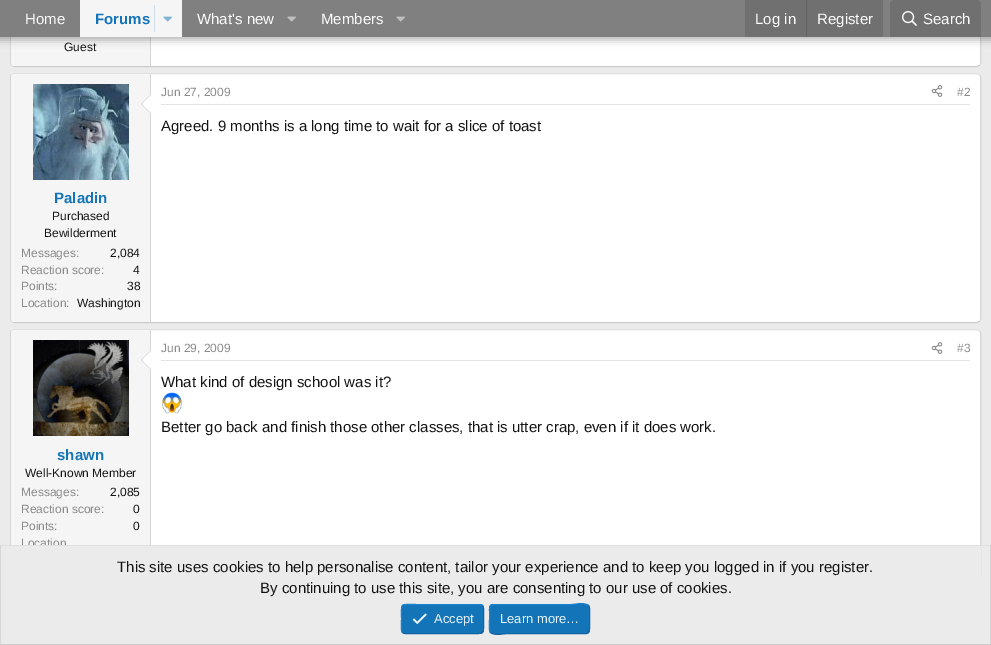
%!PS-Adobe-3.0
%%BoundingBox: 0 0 991 645
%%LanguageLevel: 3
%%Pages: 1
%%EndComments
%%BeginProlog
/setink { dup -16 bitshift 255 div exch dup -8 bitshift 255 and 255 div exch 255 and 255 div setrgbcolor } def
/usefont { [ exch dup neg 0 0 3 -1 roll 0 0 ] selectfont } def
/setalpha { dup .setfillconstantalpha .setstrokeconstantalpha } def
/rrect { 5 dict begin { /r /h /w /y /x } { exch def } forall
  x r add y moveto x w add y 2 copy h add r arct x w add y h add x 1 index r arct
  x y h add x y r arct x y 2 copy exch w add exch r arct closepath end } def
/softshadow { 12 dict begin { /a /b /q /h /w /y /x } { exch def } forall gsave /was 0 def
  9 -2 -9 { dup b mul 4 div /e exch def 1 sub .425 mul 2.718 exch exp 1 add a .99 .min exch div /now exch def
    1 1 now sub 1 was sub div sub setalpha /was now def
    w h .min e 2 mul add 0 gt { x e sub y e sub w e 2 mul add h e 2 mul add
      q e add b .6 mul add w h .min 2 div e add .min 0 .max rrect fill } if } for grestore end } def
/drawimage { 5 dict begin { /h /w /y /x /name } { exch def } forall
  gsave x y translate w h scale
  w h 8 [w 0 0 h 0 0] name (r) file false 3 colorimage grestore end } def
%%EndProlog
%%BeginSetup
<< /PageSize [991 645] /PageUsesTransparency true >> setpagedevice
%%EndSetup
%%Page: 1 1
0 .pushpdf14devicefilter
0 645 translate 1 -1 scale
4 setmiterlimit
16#EBEBEB setink
0 0 991 645 rectfill
16#FFFFFF setink
10 -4 971 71 4 rrect fill
16#D6D6D6 setink
979.5 -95.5 moveto 980 -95 980.5 -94 980.5 -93 curveto 980.5 63 lineto 980.5 64 980 65 979.5 65.5 curveto stroke
16#CCCCCC setink
979.5 65.5 moveto 977 66.5 lineto 14 66.5 lineto 11.5 65.5 lineto stroke
16#D6D6D6 setink
11.5 65.5 moveto 11 65 10.5 64 10.5 63 curveto 10.5 -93 lineto 10.5 -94 11 -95 11.5 -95.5 curveto stroke
16#F5F5F5 setink
14 -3 moveto 151 -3 lineto 151 66 lineto 14 66 lineto 12.5 66 11 64.5 11 63 curveto 11 0 lineto 11 -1.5 12.5 -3 14 -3 curveto closepath fill
16#D6D6D6 setink
150 37 1 29 rectfill
16#000000 setink
-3 -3 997 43 0 4 0.3 softshadow
16#808080 setink
0 0 991 37 rectfill
/LiberationSans-Regular 15 usefont
16#FCFCFC setink
25 24 moveto (Home) show
16#F5F5F5 setink
80 0 102 37 rectfill
/LiberationSans-Bold 15 usefont
16#1474B8 setink
95 24 moveto (Forums) show
16#CEDFEB setink
154 5 1 27 rectfill
(img1.raw) 163 16 9 6 drawimage
/LiberationSans-Regular 15 usefont
16#FCFCFC setink
197 24 moveto (What's new) show
(img2.raw) 287 16 9 6 drawimage
321 24 moveto (Members) show
(img2.raw) 396 16 9 6 drawimage
16#707070 setink
745 0 138 37 rectfill
16#FCFCFC setink
755 24 moveto (Log in) show
16#626262 setink
806 0 1 37 rectfill
16#FCFCFC setink
817 24 moveto (Register) show
16#707070 setink
894 0 moveto 977 0 lineto 979 0 981 2 981 4 curveto 981 37 lineto 890 37 lineto 890 4 lineto 890 2 892 0 894 0 curveto closepath fill
(img3.raw) 902 11 15 15 drawimage
16#FCFCFC setink
923 24 moveto (Search) show
/LiberationSans-Regular 12 usefont
16#141414 setink
64 51 moveto (Guest) show
16#FFFFFF setink
10 73 971 250 4 rrect fill
16#E0E0E0 setink
11.5 74.5 moveto 14 73.5 lineto 977 73.5 lineto 979.5 74.5 lineto stroke
16#D6D6D6 setink
979.5 74.5 moveto 980 75 980.5 76 980.5 77 curveto 980.5 319 lineto 980.5 320 980 321 979.5 321.5 curveto stroke
16#CCCCCC setink
979.5 321.5 moveto 977 322.5 lineto 14 322.5 lineto 11.5 321.5 lineto stroke
16#D6D6D6 setink
11.5 321.5 moveto 11 321 10.5 320 10.5 319 curveto 10.5 77 lineto 10.5 76 11 75 11.5 74.5 curveto stroke
16#E5E5E5 setink
161 104 809 1 rectfill
16#8A8A8A setink
161 96 moveto (Jun 27, 2009) show
(img4.raw) 931 85 12 12 drawimage
957 96 moveto (#2) show
/LiberationSans-Regular 15 usefont
16#141414 setink
161 131 moveto (Agreed. 9 months is a long time to wait for a slice of toast) show
16#F5F5F5 setink
14 74 moveto 151 74 lineto 151 322 lineto 14 322 lineto 12.5 322 11 320.5 11 319 curveto 11 77 lineto 11 75.5 12.5 74 14 74 curveto closepath fill
16#D6D6D6 setink
150 74 1 248 rectfill
(img5.raw) 33 84 96 96 drawimage
151 94 moveto 151 114 lineto 141 104 lineto closepath fill
16#FFFFFF setink
151 95 moveto 151 113 lineto 142 104 lineto closepath fill
/LiberationSans-Bold 15 usefont
16#1474B8 setink
54 203 moveto (Paladin) show
/LiberationSans-Regular 12 usefont
16#141414 setink
52 220 moveto (Purchased) show
44 237 moveto (Bewilderment) show
16#8A8A8A setink
21 257 moveto (Messages:) show
16#141414 setink
110 257 moveto (2,084) show
16#8A8A8A setink
21 274 moveto (Reaction score:) show
16#141414 setink
133 274 moveto (4) show
16#8A8A8A setink
21 290 moveto (Points:) show
16#141414 setink
127 290 moveto (38) show
16#8A8A8A setink
21 307 moveto (Location:) show
16#141414 setink
77 307 moveto (Washington) show
16#FFFFFF setink
10 329 971 250 4 rrect fill
16#E0E0E0 setink
11.5 330.5 moveto 14 329.5 lineto 977 329.5 lineto 979.5 330.5 lineto stroke
16#D6D6D6 setink
979.5 330.5 moveto 980 331 980.5 332 980.5 333 curveto 980.5 575 lineto 980.5 576 980 577 979.5 577.5 curveto stroke
11.5 577.5 moveto 11 577 10.5 576 10.5 575 curveto 10.5 333 lineto 10.5 332 11 331 11.5 330.5 curveto stroke
16#E5E5E5 setink
161 360 809 1 rectfill
16#8A8A8A setink
161 352 moveto (Jun 29, 2009) show
(img4.raw) 931 342 12 12 drawimage
957 352 moveto (#3) show
/LiberationSans-Regular 15 usefont
16#141414 setink
161 387 moveto (What kind of design school was it?) show
(img6.raw) 162 392 20 22 drawimage
161 432 moveto (Better go back and finish those other classes, that is utter crap, even if it does work.) show
16#F5F5F5 setink
14 330 moveto 151 330 lineto 151 578 lineto 14 578 lineto 12.5 578 11 576.5 11 575 curveto 11 333 lineto 11 331.5 12.5 330 14 330 curveto closepath fill
16#D6D6D6 setink
150 330 1 215 rectfill
(img7.raw) 33 340 96 96 drawimage
151 350 moveto 151 370 lineto 141 360 lineto closepath fill
16#FFFFFF setink
151 351 moveto 151 369 lineto 142 360 lineto closepath fill
/LiberationSans-Bold 15 usefont
16#1474B8 setink
57 460 moveto (shawn) show
/LiberationSans-Regular 12 usefont
16#141414 setink
25 477 moveto (Well-Known Member) show
16#8A8A8A setink
21 496 moveto (Messages:) show
16#141414 setink
110 496 moveto (2,085) show
16#8A8A8A setink
21 513 moveto (Reaction score:) show
16#141414 setink
133 513 moveto (0) show
16#8A8A8A setink
21 530 moveto (Points:) show
16#141414 setink
133 530 moveto (0) show
16#8A8A8A setink
21 547 moveto (Location) show
[
    [10 546 971 33 16#EBEBEB]
    [0 545 991 1 16#E0E0E0]
    [990 545 1 100 16#D6D6D6]
    [0 644 991 1 16#CCCCCC]
    [0 545 1 100 16#D6D6D6]
] { aload pop setink rectfill } forall
/LiberationSans-Regular 15 usefont
16#141414 setink
117 572 moveto (This site uses cookies to help personalise content, tailor your experience and to keep you logged in if you register.) show
260 593 moveto (By continuing to use this site, you are consenting to our use of cookies.) show
16#1474B8 setink
401 604 83 30 4 rrect fill
16#1265A1 setink
482.5 605.5 moveto 484.5 607.5 483.5 616 483.5 619 curveto 483.5 636 485.5 633.5 467.5 633.5 curveto 405 633.5 lineto 402.5 632.5 lineto stroke
16#1782CF setink
402.5 632.5 moveto 400.5 630.5 401.5 622 401.5 619 curveto 401.5 602 399.5 604.5 417.5 604.5 curveto 480 604.5 lineto 482.5 605.5 lineto stroke
(img8.raw) 412 613 15 12 drawimage
/LiberationSans-Regular 13 usefont
16#E8F4FC setink
434 623 moveto (Accept) show
16#1474B8 setink
489 604 101 30 4 rrect fill
16#1265A1 setink
588.5 605.5 moveto 590.5 607.5 589.5 616 589.5 619 curveto 589.5 626.5 lineto 589.5 629 590 633.5 586 633.5 curveto 508.5 633.5 lineto 503 633.5 496.5 636 491.5 633 curveto 490.5 632.5 lineto stroke
16#1782CF setink
490.5 632.5 moveto 488.5 630.5 489.5 622 489.5 619 curveto 489.5 611.5 lineto 489.5 609 489 604.5 493 604.5 curveto 570.5 604.5 lineto 576 604.5 582.5 602 587.5 605 curveto 588.5 605.5 lineto stroke
16#E8F4FC setink
500 623 moveto (Learn more…) show
.poppdf14devicefilter showpage
%%EOF
